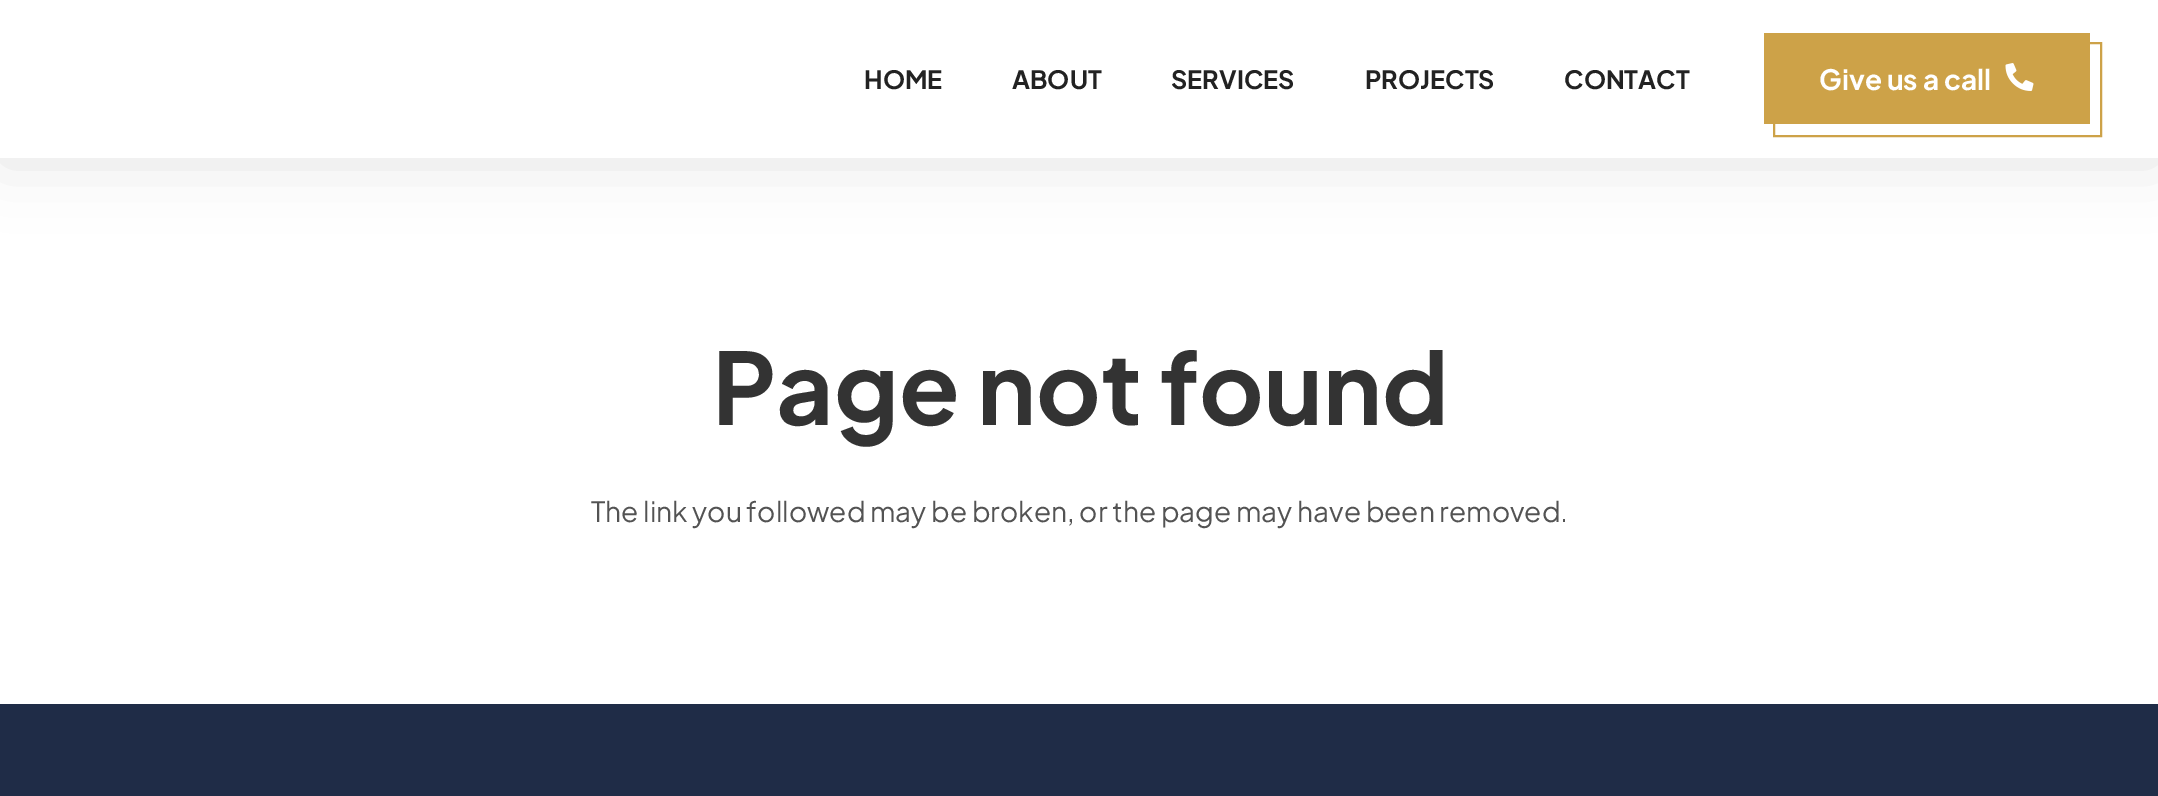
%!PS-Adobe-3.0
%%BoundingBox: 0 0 2158 796
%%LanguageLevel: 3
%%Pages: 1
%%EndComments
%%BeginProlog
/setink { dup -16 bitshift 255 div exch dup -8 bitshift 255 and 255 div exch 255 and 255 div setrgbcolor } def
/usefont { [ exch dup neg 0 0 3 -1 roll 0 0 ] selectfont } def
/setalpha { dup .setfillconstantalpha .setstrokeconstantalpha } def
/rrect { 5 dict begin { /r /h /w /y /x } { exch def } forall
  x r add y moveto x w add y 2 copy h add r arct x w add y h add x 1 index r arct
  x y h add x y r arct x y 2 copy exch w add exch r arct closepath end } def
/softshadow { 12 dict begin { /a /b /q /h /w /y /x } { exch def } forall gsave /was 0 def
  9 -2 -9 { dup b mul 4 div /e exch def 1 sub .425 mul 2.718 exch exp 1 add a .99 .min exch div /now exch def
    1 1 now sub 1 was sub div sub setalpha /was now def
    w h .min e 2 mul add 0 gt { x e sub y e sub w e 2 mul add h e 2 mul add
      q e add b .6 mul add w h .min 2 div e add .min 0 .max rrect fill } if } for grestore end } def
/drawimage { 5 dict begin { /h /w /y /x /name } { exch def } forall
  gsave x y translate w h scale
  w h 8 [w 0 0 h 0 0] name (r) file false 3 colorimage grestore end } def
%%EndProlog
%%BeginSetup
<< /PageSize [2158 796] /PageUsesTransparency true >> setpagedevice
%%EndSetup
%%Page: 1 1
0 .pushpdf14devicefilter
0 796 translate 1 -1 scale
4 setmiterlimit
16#FFFFFF setink
0 0 2158 796 rectfill
16#000000 setink
0 5 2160 158 0 31.5 0.11 softshadow
16#FFFFFF setink
0 0 2158 158 rectfill
/PlusJakartaSans-Bold 25.25 usefont
16#222222 setink
[
    [(HOME) 864 89]
    [(ABOUT) 1012 89]
    [(SERVICES) 1171 89]
    [(PROJECTS) 1365 89]
    [(CONTACT) 1564 89]
] { aload pop moveto show } forall
16#CDA248 setink
1764 33 326 91 rectfill
(img1.raw) 2005 63 29 28 drawimage
2 setlinewidth
1774 43 327 93 rectstroke
/PlusJakartaSans-Bold 28 usefont
16#FFFFFF setink
1819 90 moveto (Give us a call) show
/PlusJakartaSans-Bold 99.25 usefont
16#333333 setink
712 425 moveto (Page not found) show
/PlusJakartaSans-Regular 28 usefont
16#535353 setink
591 522 moveto (The link you followed may be broken, or the page may have been removed.) show
16#1F2C47 setink
0 704 2158 92 rectfill
.poppdf14devicefilter showpage
%%EOF
